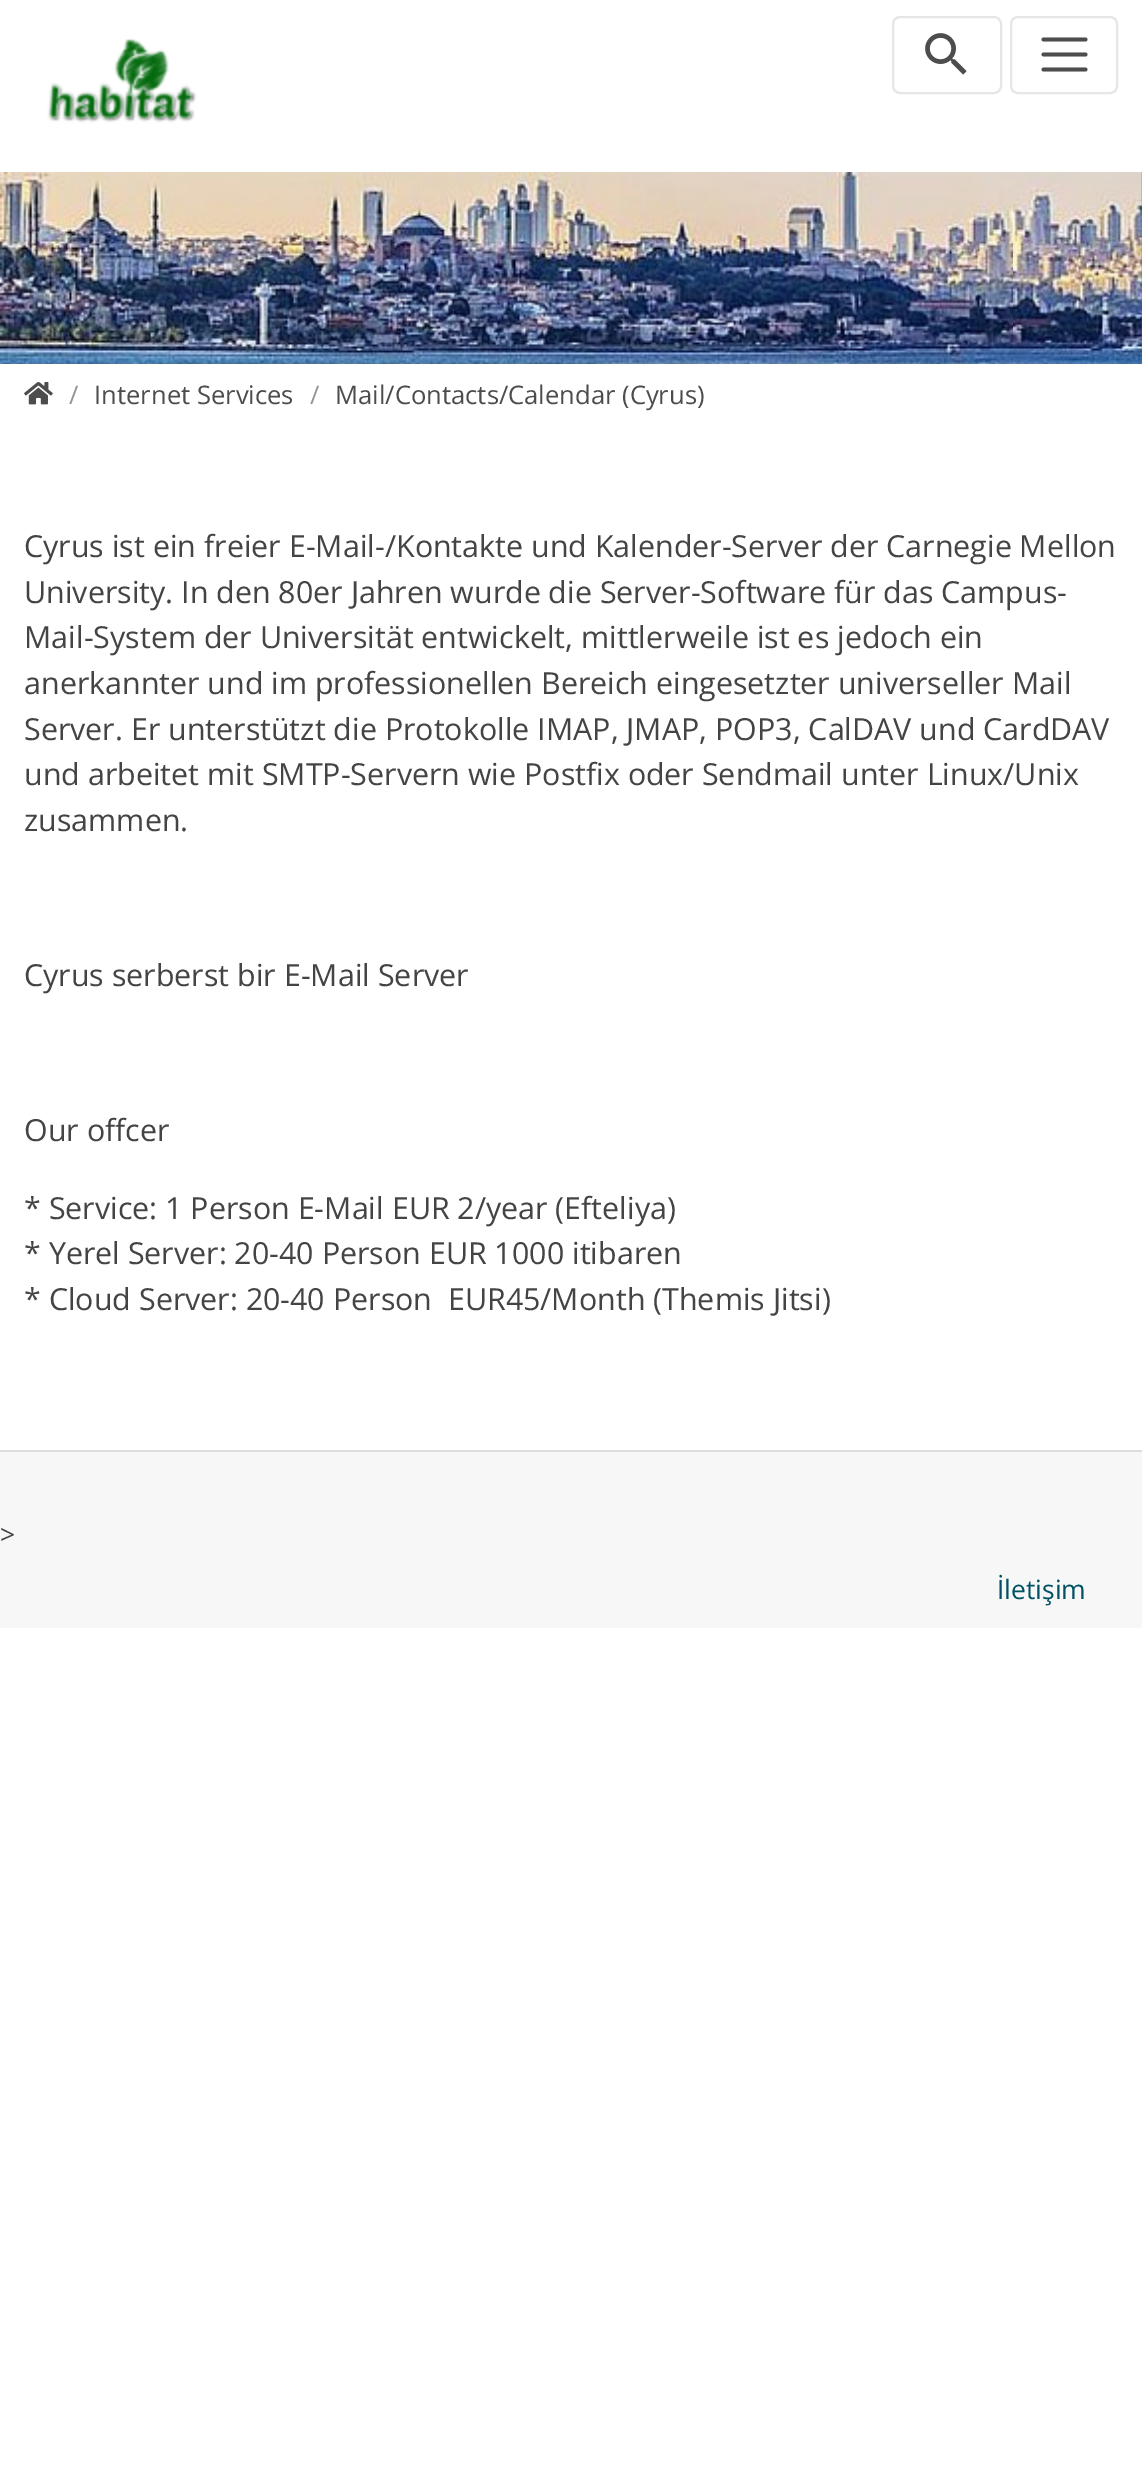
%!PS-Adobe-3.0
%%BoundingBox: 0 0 1142 2474
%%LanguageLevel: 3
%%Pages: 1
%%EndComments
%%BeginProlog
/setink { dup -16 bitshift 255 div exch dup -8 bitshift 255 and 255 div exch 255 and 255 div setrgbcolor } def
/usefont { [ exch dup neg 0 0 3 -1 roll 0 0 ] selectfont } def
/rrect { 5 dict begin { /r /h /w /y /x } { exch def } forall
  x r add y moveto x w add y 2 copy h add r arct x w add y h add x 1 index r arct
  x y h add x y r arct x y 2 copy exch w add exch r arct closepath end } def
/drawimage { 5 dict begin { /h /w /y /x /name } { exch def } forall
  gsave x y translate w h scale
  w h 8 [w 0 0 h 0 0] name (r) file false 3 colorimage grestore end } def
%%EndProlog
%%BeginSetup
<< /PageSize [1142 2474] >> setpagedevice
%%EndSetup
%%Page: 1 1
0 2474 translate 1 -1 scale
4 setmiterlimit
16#FFFFFF setink
0 0 1142 2474 rectfill
(img1.raw) 47 39 150 84 drawimage
16#E6E6E6 setink
2 setlinewidth
893 17 108 76 7 rrect stroke
(img2.raw) 925 33 42 42 drawimage
1011 17 106 76 7 rrect stroke
16#4D4D4D setink
3.8 setlinewidth
1 setlinecap
1043.5 39.5 moveto 1085.5 39.5 lineto 1043.5 54.5 moveto 1085.5 54.5 lineto 1043.5 69.5 moveto 1085.5 69.5 lineto stroke
16#6B6B6B setink
0 172 1142 192 rectfill
(img3.raw) 0 172 1142 192 drawimage
(img4.raw) 24 382 29 23 drawimage
/OpenSans-Regular 25.6 usefont
16#949494 setink
69 404 moveto (/) show
16#4D4D4D setink
94 404 moveto (Internet Services) show
16#949494 setink
310 404 moveto (/) show
16#4D4D4D setink
335 404 moveto (Mail/Contacts/Calendar \(Cyrus\)) show
/OpenSans-Regular 30.4 usefont
16#444444 setink
[
    [(Cyrus ist ein freier E-Mail-/Kontakte und Kalender-Server der Carnegie Mellon) 24 557]
    [(University. In den 80er Jahren wurde die Server-Software für das Campus-) 24 603]
    [(Mail-System der Universität entwickelt, mittlerweile ist es jedoch ein) 24 648]
    [(anerkannter und im professionellen Bereich eingesetzter universeller Mail) 24 694]
    [(Server. Er unterstützt die Protokolle IMAP, JMAP, POP3, CalDAV und CardDAV) 24 740]
    [(und arbeitet mit SMTP-Servern wie Postfix oder Sendmail unter Linux/Unix) 24 785]
    [(zusammen.) 24 831]
    [(Cyrus serberst bir E-Mail Server) 24 986]
    [(Our offcer) 24 1141]
    [(* Service: 1 Person E-Mail EUR 2/year \(Efteliya\)) 24 1219]
    [(* Yerel Server: 20-40 Person EUR 1000 itibaren) 24 1264]
    [(* Cloud Server: 20-40 Person  EUR45/Month \(Themis Jitsi\)) 24 1310]
] { aload pop moveto show } forall
16#F7F7F7 setink
0 1452 1142 176 rectfill
16#DDDDDD setink
0 1450 1142 2 rectfill
/OpenSans-Regular 26.5 usefont
16#444444 setink
0 1544 moveto (>) show
16#005262 setink
997 1599 moveto (İletişim) show
showpage
%%EOF
